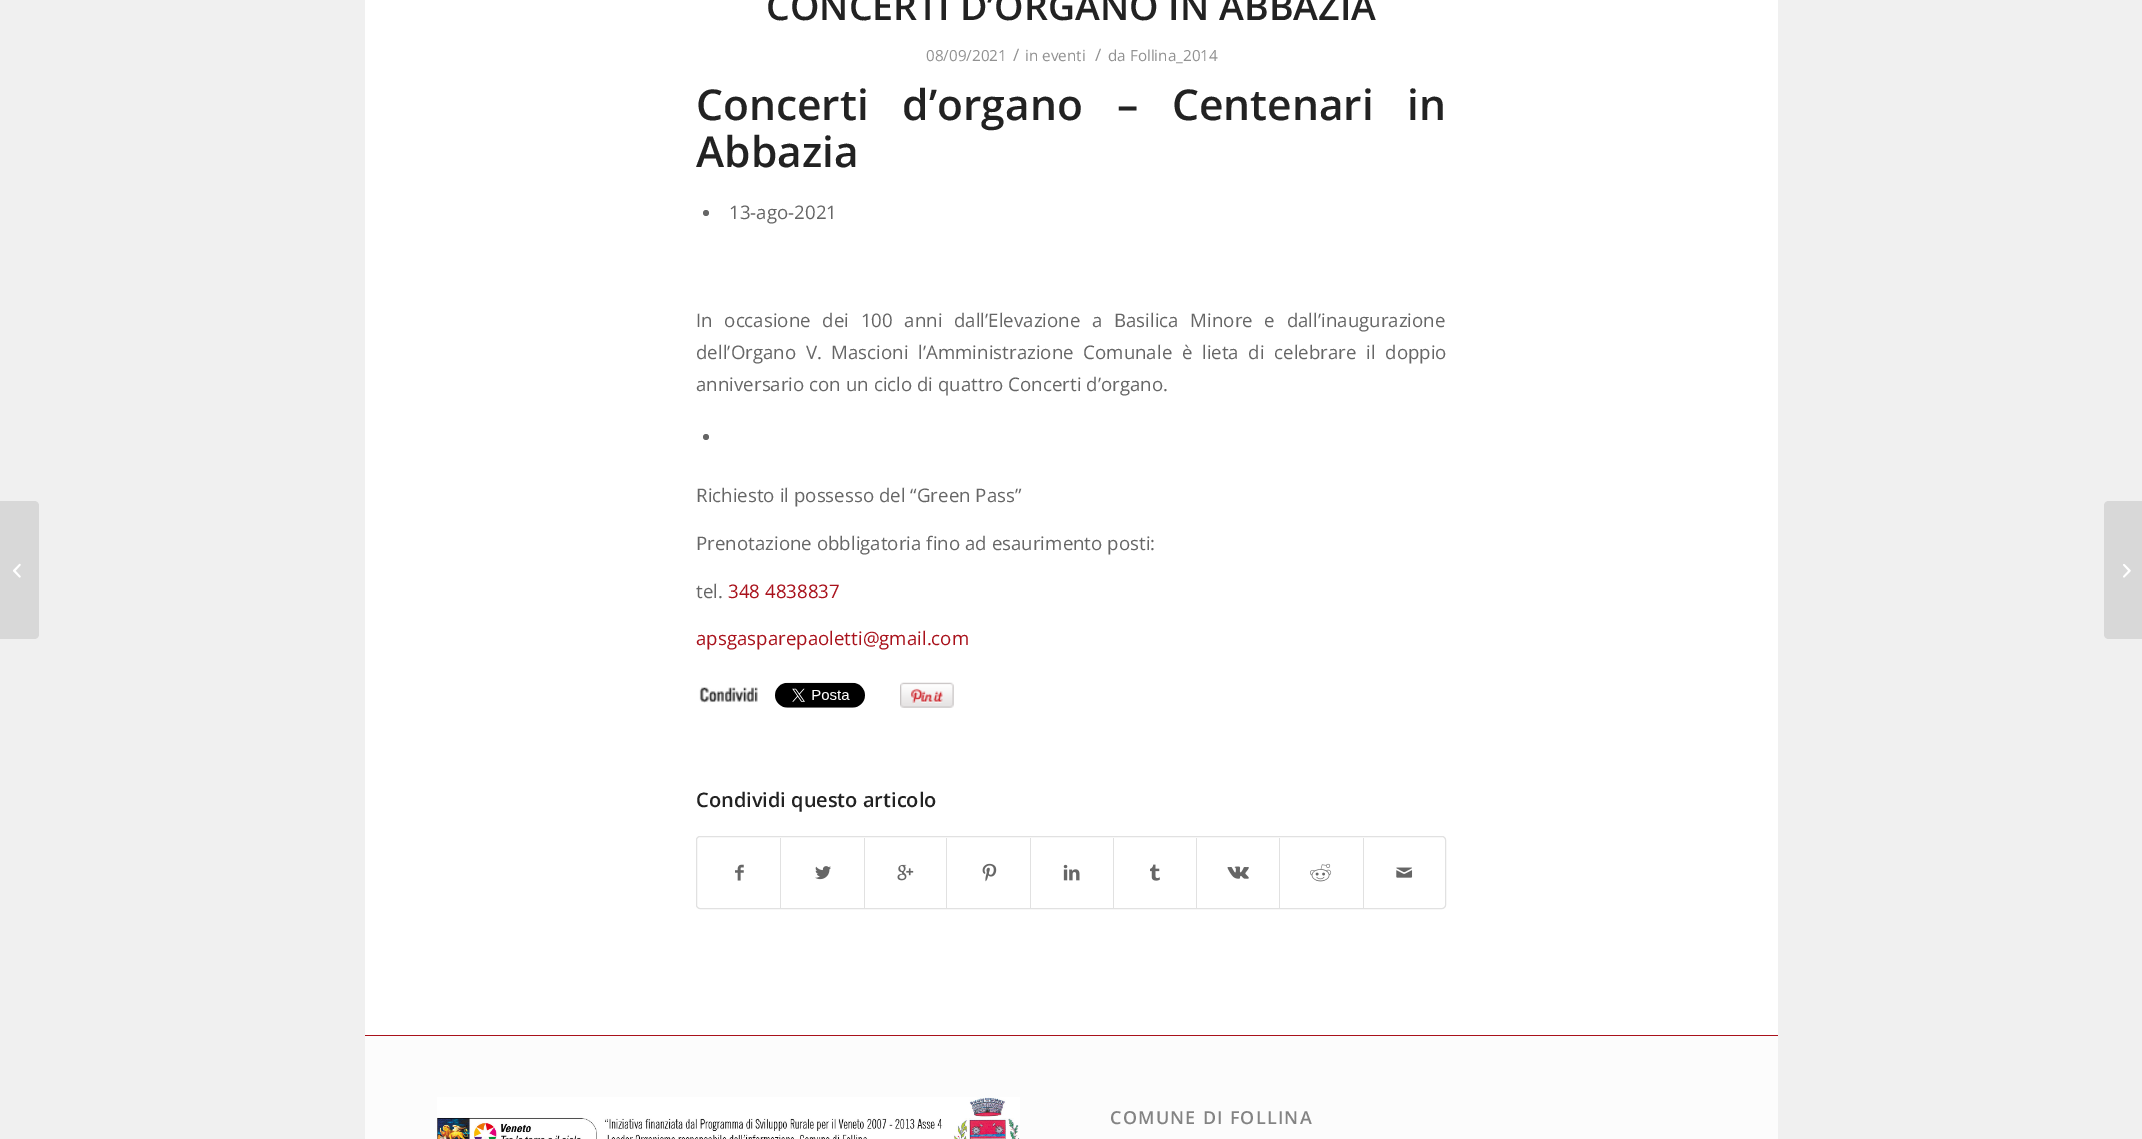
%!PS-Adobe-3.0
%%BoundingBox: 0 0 2142 1139
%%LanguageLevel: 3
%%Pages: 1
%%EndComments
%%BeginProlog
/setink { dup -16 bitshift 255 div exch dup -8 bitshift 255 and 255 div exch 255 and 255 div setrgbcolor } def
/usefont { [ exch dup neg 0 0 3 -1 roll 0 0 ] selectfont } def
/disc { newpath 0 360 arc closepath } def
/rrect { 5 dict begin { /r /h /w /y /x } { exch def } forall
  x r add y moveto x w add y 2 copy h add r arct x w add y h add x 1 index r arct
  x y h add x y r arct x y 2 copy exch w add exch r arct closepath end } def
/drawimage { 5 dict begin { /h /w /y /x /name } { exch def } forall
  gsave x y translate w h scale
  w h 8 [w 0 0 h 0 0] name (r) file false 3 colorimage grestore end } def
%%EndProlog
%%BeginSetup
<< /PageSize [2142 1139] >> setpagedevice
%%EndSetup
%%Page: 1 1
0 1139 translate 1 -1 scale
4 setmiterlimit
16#F0F0F0 setink
0 0 2142 1139 rectfill
16#D8D8D8 setink
0 501 moveto 34 501 lineto 37 501 39 503 39 506 curveto 39 634 lineto 39 637 37 639 34 639 curveto 0 639 lineto closepath fill
(img1.raw) 13 563 8 15 drawimage
16#FFFFFF setink
365 0 1413 1035 rectfill
/OpenSans-SemiBold 37.5 usefont
16#222222 setink
766 20 moveto (CONCERTI D’ORGANO IN ABBAZIA) show
/OpenSans-Regular 15.25 usefont
16#919191 setink
926 61 moveto (08/09/2021) show
/OpenSans-Regular 17 usefont
1013 61 moveto (/) show
/OpenSans-Regular 15.25 usefont
1025 61 moveto (in eventi) show
/OpenSans-Regular 17 usefont
1095 61 moveto (/) show
/OpenSans-Regular 15.25 usefont
1108 61 moveto (da Follina_2014) show
/OpenSans-SemiBold 42.5 usefont
16#222222 setink
696 120 moveto 23 0 32 (Concerti d’organo – Centenari in) widthshow
696 167 moveto (Abbazia) show
16#666666 setink
706 213 3 disc fill
/OpenSans-Regular 18.7 usefont
729 219 moveto (13-ago-2021) show
696 327 moveto 6.75 0 32 (In occasione dei 100 anni dall’Elevazione a Basilica Minore e dall’inaugurazione) widthshow
696 359 moveto 4.75 0 32 (dell’Organo V. Mascioni l’Amministrazione Comunale è lieta di celebrare il doppio) widthshow
696 391 moveto (anniversario con un ciclo di quattro Concerti d’organo.) show
706 437 3 disc fill
[
    [(Richiesto il possesso del “Green Pass”) 696 502]
    [(Prenotazione obbligatoria fino ad esaurimento posti:) 696 550]
    [(tel.) 696 598]
] { aload pop moveto show } forall
16#A9111B setink
728 598 moveto (348 4838837) show
696 645 moveto (apsgasparepaoletti@gmail.com) show
(img2.raw) 699 687 59 16 drawimage
(img3.raw) 775 682 90 26 drawimage
(img4.raw) 900 682 54 26 drawimage
/OpenSans-SemiBold 20 usefont
16#222222 setink
696 807 moveto (Condividi questo articolo) show
16#E1E1E1 setink
696.5 836.5 749 72 3.5 rrect stroke
(img5.raw) 735 864 9 17 drawimage
780 838 1 70 rectfill
(img6.raw) 815 866 16 14 drawimage
864 838 1 70 rectfill
(img7.raw) 897 864 17 17 drawimage
946 838 1 70 rectfill
(img8.raw) 982 863 15 19 drawimage
1030 838 1 70 rectfill
(img9.raw) 1063 864 17 17 drawimage
1113 838 1 70 rectfill
(img10.raw) 1150 864 10 17 drawimage
1196 838 1 70 rectfill
(img11.raw) 1227 866 22 13 drawimage
1279 838 1 70 rectfill
(img12.raw) 1310 863 22 19 drawimage
1363 838 1 70 rectfill
(img13.raw) 1396 867 17 11 drawimage
16#FCFCFC setink
365 1036 1413 103 rectfill
16#A9111B setink
365 1035 1413 1 rectfill
(img14.raw) 437 1097 583 42 drawimage
/OpenSans-SemiBold 17.9 usefont
16#838383 setink
1110 1124 moveto 1.25 0 (COMUNE DI FOLLINA) ashow
16#D8D8D8 setink
2109 501 moveto 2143 501 lineto 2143 639 lineto 2109 639 lineto 2106 639 2104 637 2104 634 curveto 2104 506 lineto 2104 503 2106 501 2109 501 curveto closepath fill
(img15.raw) 2123 564 8 14 drawimage
showpage
%%EOF
